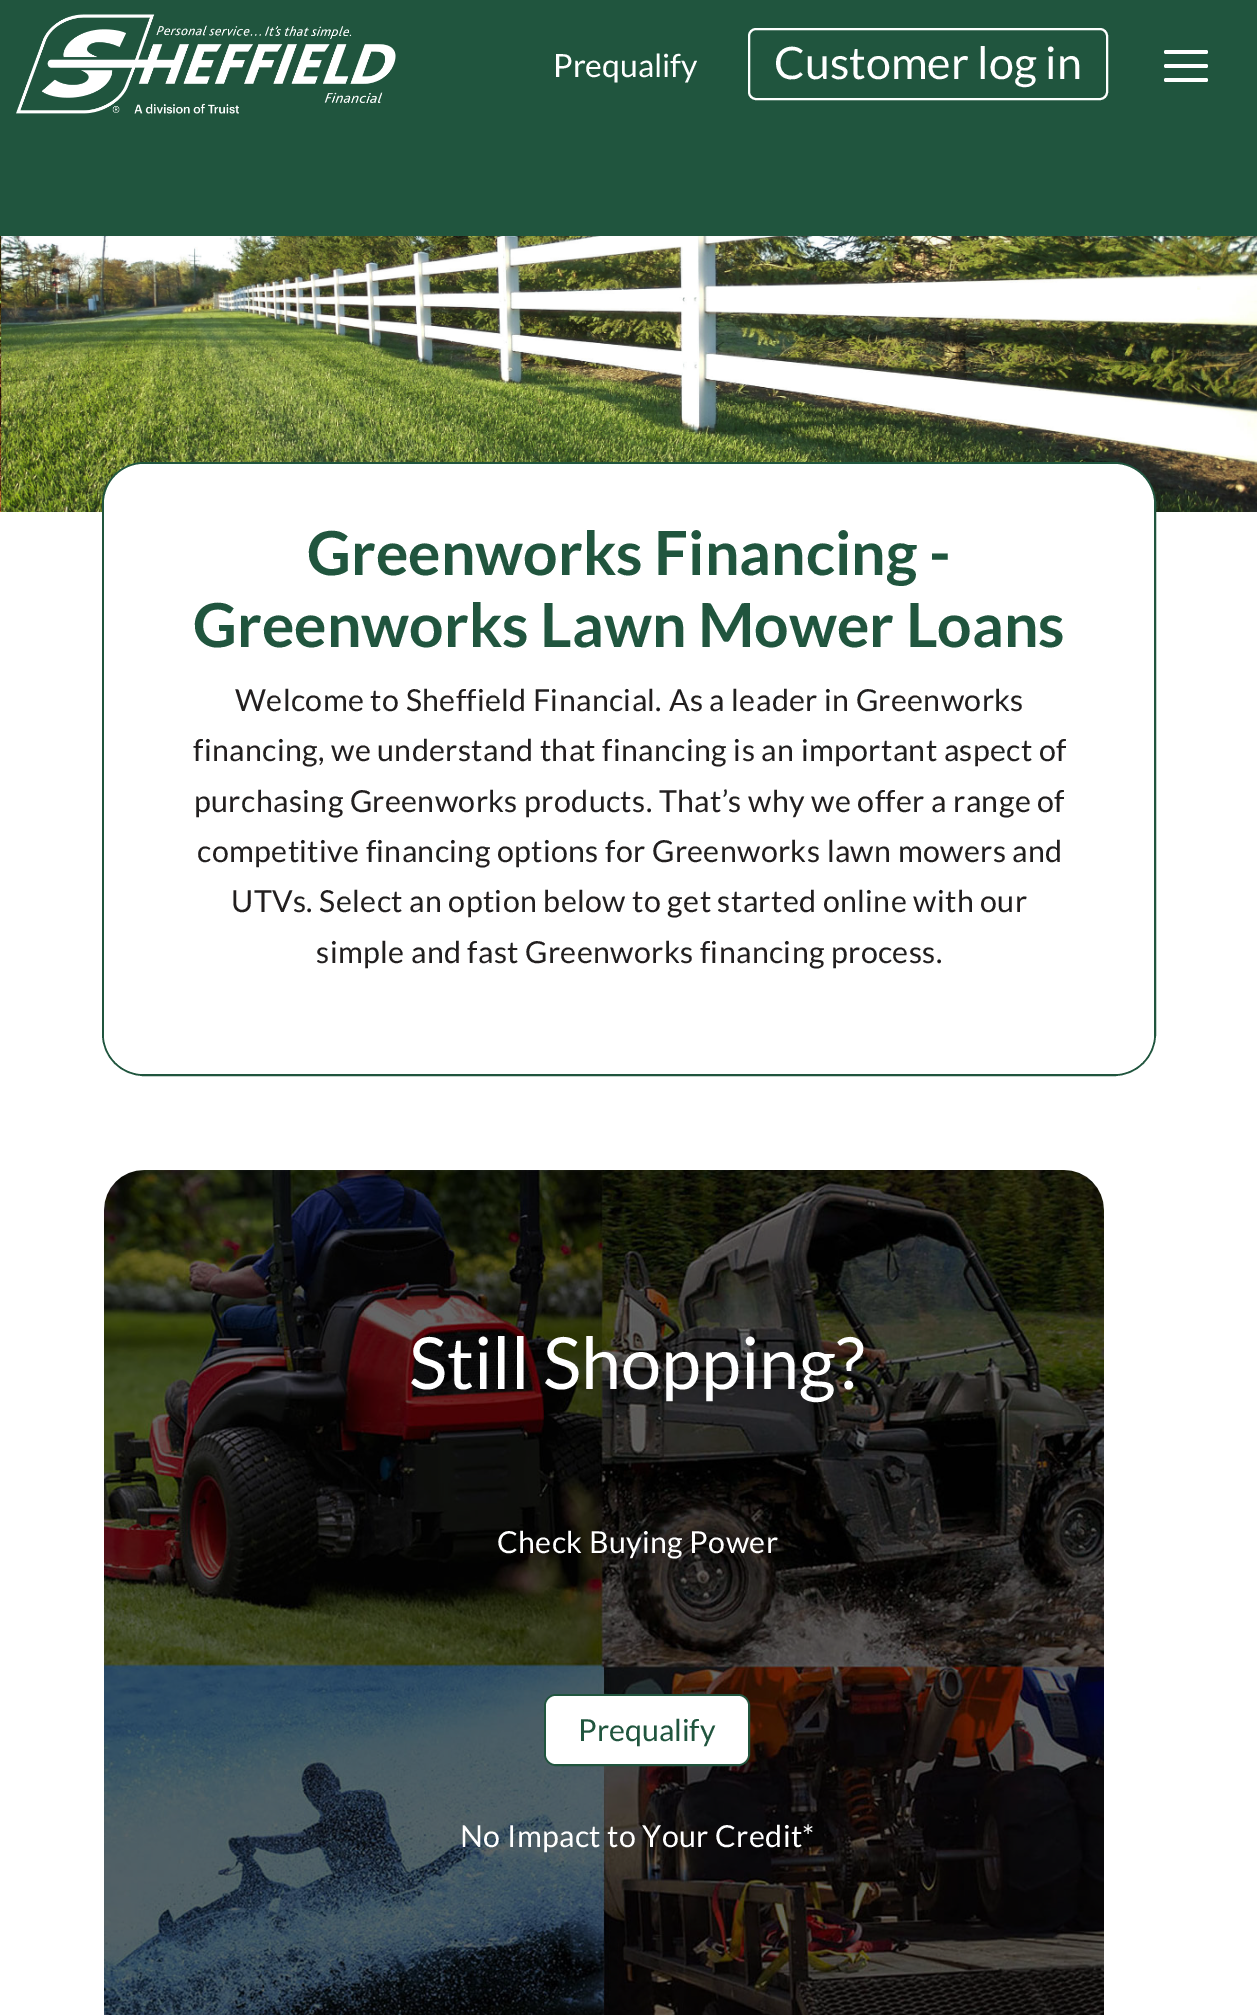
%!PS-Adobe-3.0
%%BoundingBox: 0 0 1257 2015
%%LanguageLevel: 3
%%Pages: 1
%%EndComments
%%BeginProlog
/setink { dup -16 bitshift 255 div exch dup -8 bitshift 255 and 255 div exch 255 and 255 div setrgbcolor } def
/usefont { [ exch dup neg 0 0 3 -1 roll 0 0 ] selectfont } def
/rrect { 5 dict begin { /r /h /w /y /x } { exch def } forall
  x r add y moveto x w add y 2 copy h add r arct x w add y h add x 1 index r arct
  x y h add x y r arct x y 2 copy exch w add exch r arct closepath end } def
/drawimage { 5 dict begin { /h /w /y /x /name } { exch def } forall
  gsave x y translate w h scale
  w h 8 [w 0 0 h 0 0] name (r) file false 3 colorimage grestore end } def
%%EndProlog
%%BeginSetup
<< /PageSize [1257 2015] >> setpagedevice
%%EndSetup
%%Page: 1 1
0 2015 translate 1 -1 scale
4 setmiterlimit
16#FFFFFF setink
0 0 1257 2015 rectfill
16#20553E setink
0 0 1257 236 rectfill
(img1.raw) 16 14 380 100 drawimage
/Lato-Regular 32 usefont
16#FFFFFF setink
553 77 moveto (Prequalify) show
2 setlinewidth
749 29 358 70 7 rrect stroke
/Lato-Regular 44.75 usefont
774 79 moveto (Customer log in) show
1164 64 44 4 2 rrect fill
1164 50 44 4 2 rrect fill
1164 78 44 4 2 rrect fill
(img2.raw) 0 236 1257 276 drawimage
16#20553E setink
103 463 1052 612 41 rrect stroke
16#FFFFFF setink
104 464 1050 610 40 rrect fill
/Lato-Bold 60.75 usefont
16#20553E setink
307 575 moveto (Greenworks Financing -) show
193 647 moveto (Greenworks Lawn Mower Loans) show
/Lato-Regular 30.35 usefont
16#221F1F setink
235 711 moveto 0.38 0 (Welcome to Sheffield Financial. As a leader in Greenworks) ashow
193 761 moveto 0.38 0 (financing, we understand that financing is an important aspect of) ashow
194 812 moveto 0.38 0 (purchasing Greenworks products. That’s why we offer a range of) ashow
197 862 moveto 0.38 0 (competitive financing options for Greenworks lawn mowers and) ashow
231 912 moveto 0.38 0 (UTVs. Select an option below to get started online with our) ashow
316 963 moveto 0.38 0 (simple and fast Greenworks financing process.) ashow
(img3.raw) 104 1170 1000 845 drawimage
/Lato-Regular 72 usefont
16#FFFFFF setink
409 1389 moveto (Still Shopping?) show
/Lato-Regular 30.35 usefont
497 1553 moveto 0.38 0 (Check Buying Power) ashow
16#20553E setink
545 1695 204 70 11 rrect stroke
16#FFFFFF setink
546 1696 202 68 10 rrect fill
16#20553E setink
578 1741 moveto (Prequalify) show
16#FFFFFF setink
460 1847 moveto 0.38 0 (No Impact to Your Credit*) ashow
showpage
%%EOF
